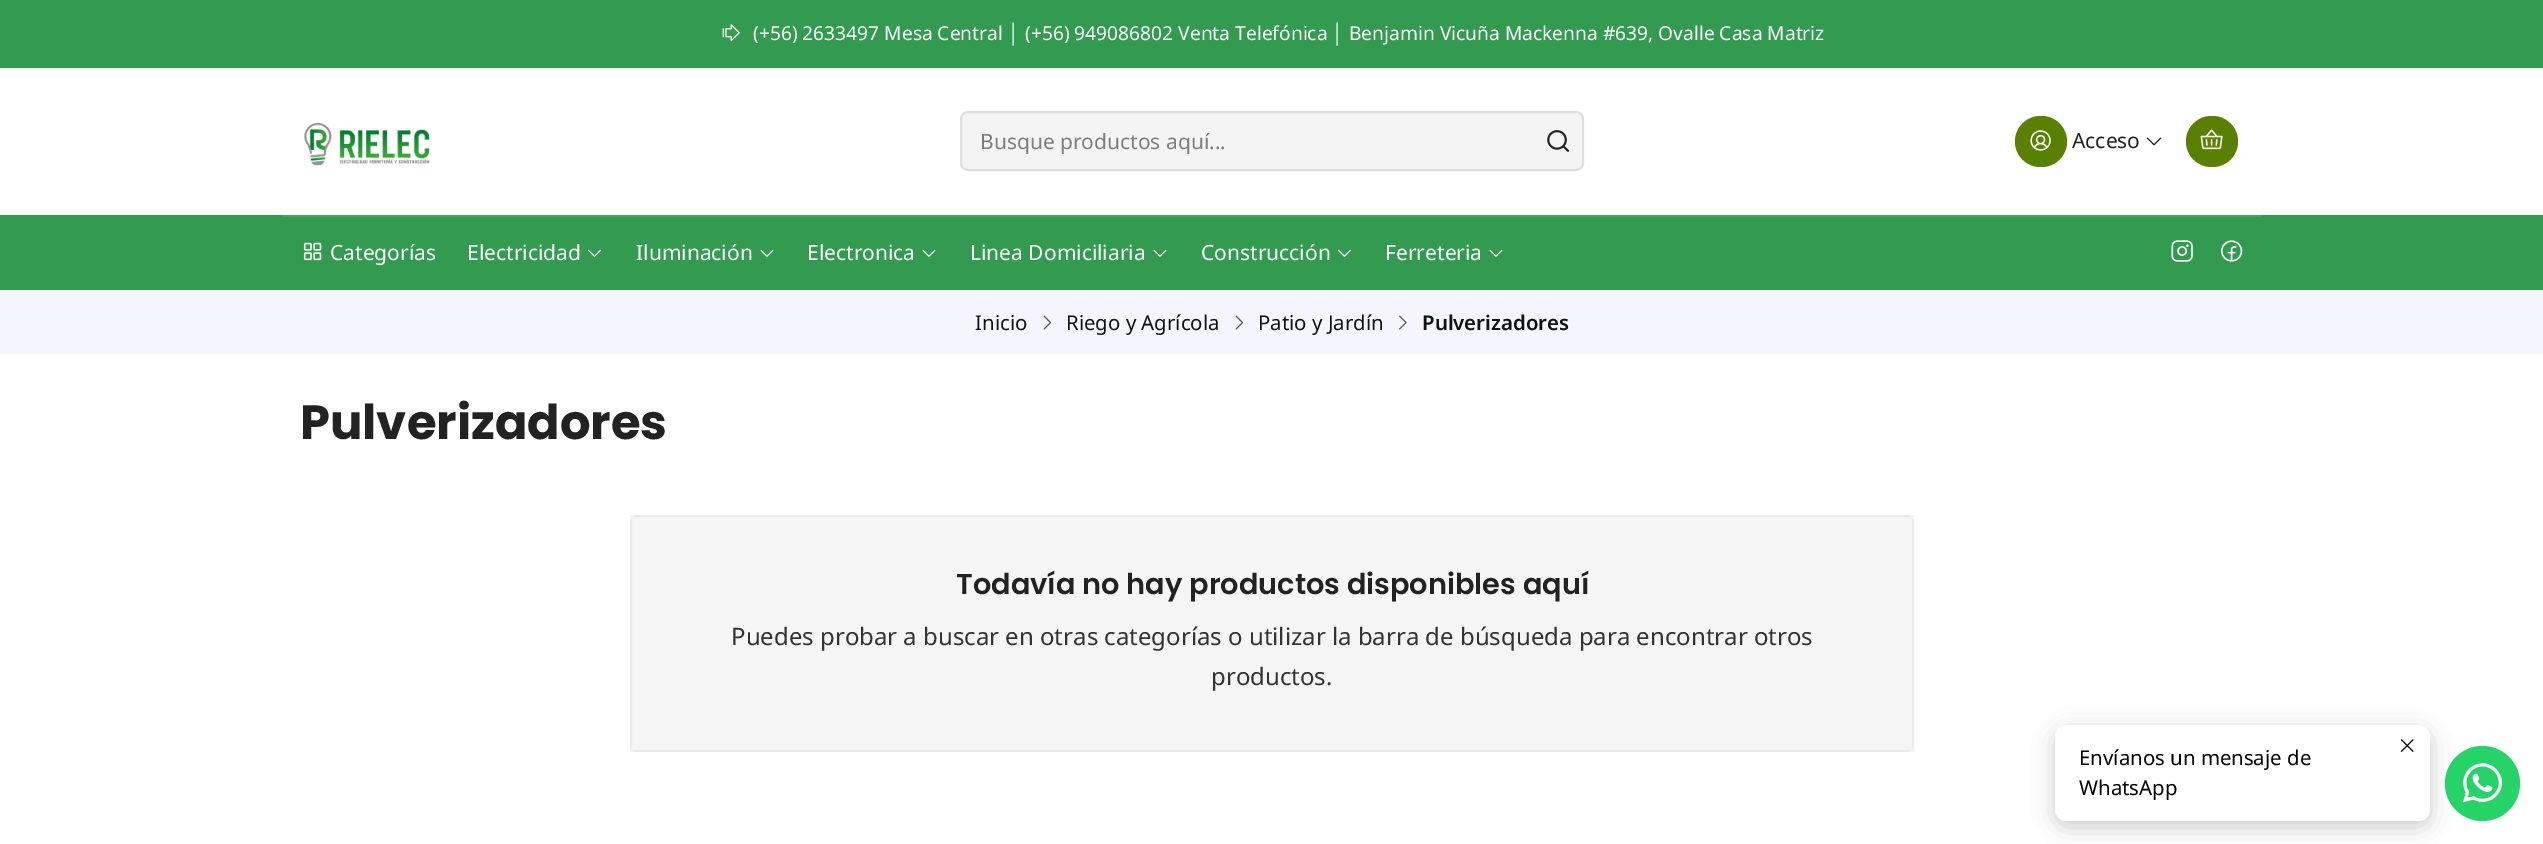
%!PS-Adobe-3.0
%%BoundingBox: 0 0 2543 844
%%LanguageLevel: 3
%%Pages: 1
%%EndComments
%%BeginProlog
/setink { dup -16 bitshift 255 div exch dup -8 bitshift 255 and 255 div exch 255 and 255 div setrgbcolor } def
/usefont { [ exch dup neg 0 0 3 -1 roll 0 0 ] selectfont } def
/setalpha { dup .setfillconstantalpha .setstrokeconstantalpha } def
/disc { newpath 0 360 arc closepath } def
/rrect { 5 dict begin { /r /h /w /y /x } { exch def } forall
  x r add y moveto x w add y 2 copy h add r arct x w add y h add x 1 index r arct
  x y h add x y r arct x y 2 copy exch w add exch r arct closepath end } def
/softshadow { 12 dict begin { /a /b /q /h /w /y /x } { exch def } forall gsave /was 0 def
  9 -2 -9 { dup b mul 4 div /e exch def 1 sub .425 mul 2.718 exch exp 1 add a .99 .min exch div /now exch def
    1 1 now sub 1 was sub div sub setalpha /was now def
    w h .min e 2 mul add 0 gt { x e sub y e sub w e 2 mul add h e 2 mul add
      q e add b .6 mul add w h .min 2 div e add .min 0 .max rrect fill } if } for grestore end } def
/drawimage { 5 dict begin { /h /w /y /x /name } { exch def } forall
  gsave x y translate w h scale
  w h 8 [w 0 0 h 0 0] name (r) file false 3 colorimage grestore end } def
%%EndProlog
%%BeginSetup
<< /PageSize [2543 844] /PageUsesTransparency true >> setpagedevice
%%EndSetup
%%Page: 1 1
0 .pushpdf14devicefilter
0 844 translate 1 -1 scale
4 setmiterlimit
16#FFFFFF setink
0 0 2543 844 rectfill
16#329B4F setink
0 0 2543 68 rectfill
(img1.raw) 722 24 18 18 drawimage
/NotoSans-Regular 19.2 usefont
16#FFFFFF setink
753 40 moveto (\(+56\) 2633497 Mesa Central) show
/LiberationSans-Regular 19.2 usefont
1008 40 moveto (│) show
/NotoSans-Regular 19.2 usefont
1025 40 moveto (\(+56\) 949086802 Venta Telefónica) show
/LiberationSans-Regular 19.2 usefont
1332 40 moveto (│) show
/NotoSans-Regular 19.2 usefont
1349 40 moveto (Benjamin Vicuña Mackenna #639, Ovalle Casa Matriz) show
16#E9E9E9 setink
0 290 2543 1 rectfill
(img2.raw) 304 123 126 43 drawimage
16#F4F4F4 setink
960 111 624 60 8 rrect fill
0.1 setalpha
16#222222 setink
2 setlinewidth
961 112 622 58 7 rrect stroke
/NotoSans-Regular 21 usefont
1 setalpha
16#7E7E7E setink
980 149 moveto (Busque productos aquí...) show
(img3.raw) 1547 130 22 22 drawimage
16#598000 setink
2015 116 52 51 25.5 rrect fill
(img4.raw) 2030 130 21 21 drawimage
16#222222 setink
2072 148 moveto (Acceso) show
(img5.raw) 2146 137 16 9 drawimage
16#598000 setink
2186 116 52 51 25.5 rrect fill
(img6.raw) 2200 129 23 21 drawimage
16#329B4F setink
0 215 2543 75 rectfill
16#47A561 setink
282 215 1980 2 rectfill
(img7.raw) 303 242 19 19 drawimage
16#FFFFFF setink
330 260 moveto (Categorías) show
467 260 moveto (Electricidad) show
(img8.raw) 588 249 13 8 drawimage
636 260 moveto (Iluminación) show
(img9.raw) 760 249 14 8 drawimage
807 260 moveto (Electronica) show
(img9.raw) 922 249 14 8 drawimage
970 260 moveto (Linea Domiciliaria) show
(img9.raw) 1153 249 14 8 drawimage
1201 260 moveto (Construcción) show
(img8.raw) 1338 249 13 8 drawimage
1385 260 moveto (Ferreteria) show
(img9.raw) 1489 249 14 8 drawimage
(img10.raw) 2171 240 22 22 drawimage
(img11.raw) 2221 240 22 22 drawimage
16#F4F5FF setink
0 291 2543 63 rectfill
/NotoSans-Regular 20.4 usefont
16#111111 setink
975 330 moveto (Inicio) show
(img12.raw) 1043 315 9 15 drawimage
1066 330 moveto (Riego y Agrícola) show
(img12.raw) 1235 315 9 15 drawimage
1258 330 moveto (Patio y Jardín) show
(img13.raw) 1399 315 8 15 drawimage
/NotoSans-SemiBold 20.4 usefont
1422 330 moveto (Pulverizadores) show
/Poppins-Bold 48 usefont
16#222222 setink
300 439 moveto (Pulverizadores) show
16#F5F5F5 setink
630 515 1284 237 8 rrect fill
0.05 setalpha
16#222222 setink
631 516 1282 235 rectstroke
/Poppins-SemiBold 28.8 usefont
1 setalpha
956 594 moveto (Todavía no hay productos disponibles aquí) show
/NotoSans-Regular 24 usefont
16#333333 setink
731 645 moveto (Puedes probar a buscar en otras categorías o utilizar la barra de búsqueda para encontrar otros) show
1211 685 moveto (productos.) show
16#000000 setink
2055 731 375 96 12 11 0.2 softshadow
16#FFFFFF setink
2055 725 375 96 12 rrect fill
(img14.raw) 2400 739 14 13 drawimage
/NotoSans-Regular 20.4 usefont
16#000000 setink
2079 765 moveto (Envíanos un mensaje de) show
2079 795 moveto (WhatsApp) show
16#25D366 setink
2482.5 783.5 37.5 disc fill
(img15.raw) 2463 763 39 40 drawimage
.poppdf14devicefilter showpage
%%EOF
